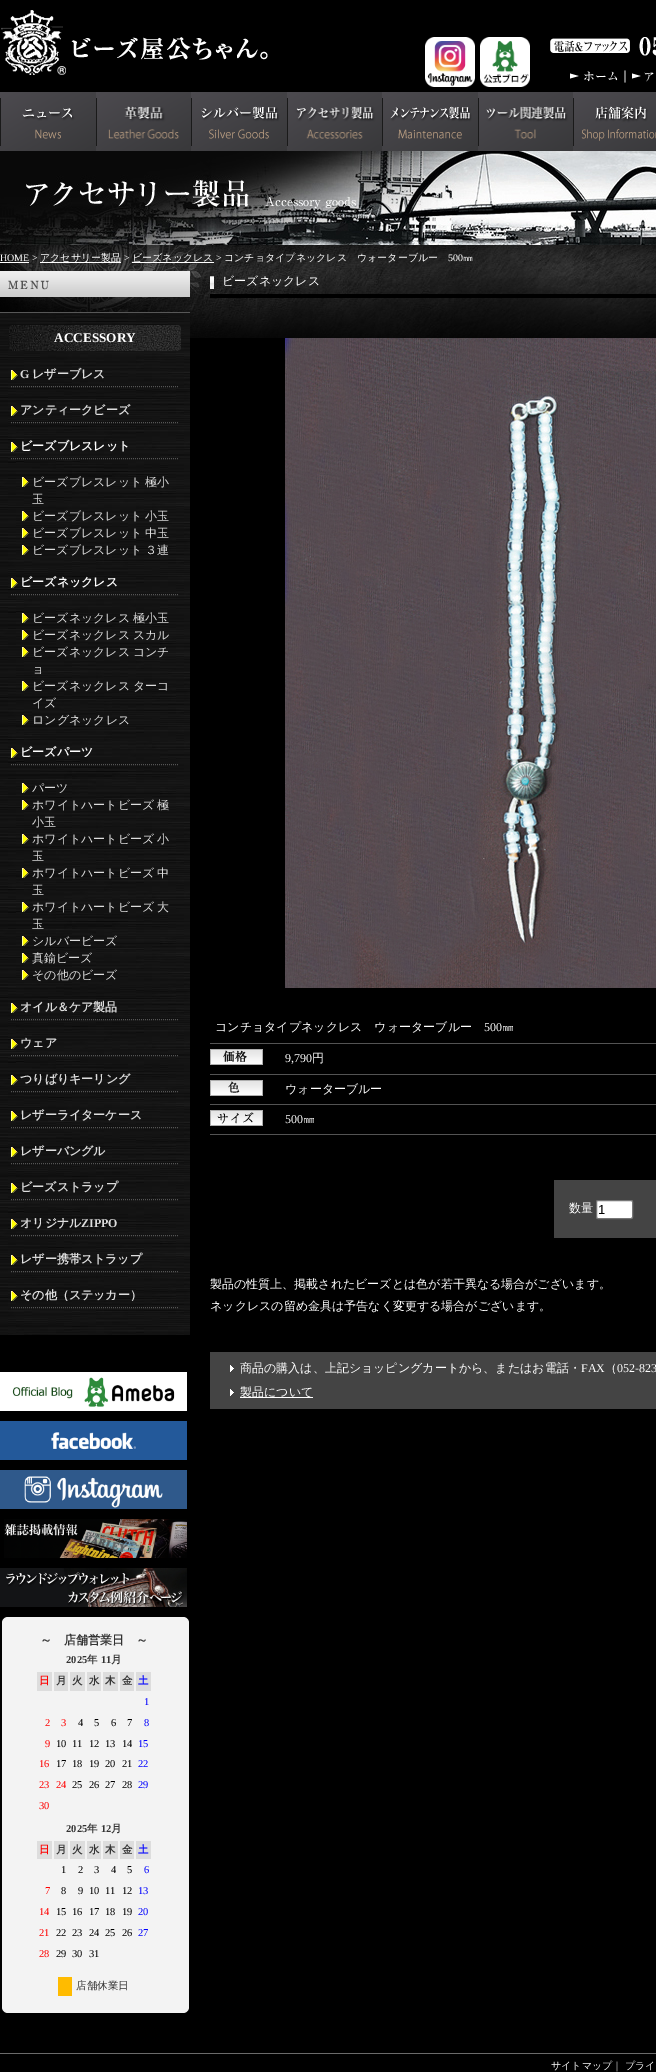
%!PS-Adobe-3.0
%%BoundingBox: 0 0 656 2072
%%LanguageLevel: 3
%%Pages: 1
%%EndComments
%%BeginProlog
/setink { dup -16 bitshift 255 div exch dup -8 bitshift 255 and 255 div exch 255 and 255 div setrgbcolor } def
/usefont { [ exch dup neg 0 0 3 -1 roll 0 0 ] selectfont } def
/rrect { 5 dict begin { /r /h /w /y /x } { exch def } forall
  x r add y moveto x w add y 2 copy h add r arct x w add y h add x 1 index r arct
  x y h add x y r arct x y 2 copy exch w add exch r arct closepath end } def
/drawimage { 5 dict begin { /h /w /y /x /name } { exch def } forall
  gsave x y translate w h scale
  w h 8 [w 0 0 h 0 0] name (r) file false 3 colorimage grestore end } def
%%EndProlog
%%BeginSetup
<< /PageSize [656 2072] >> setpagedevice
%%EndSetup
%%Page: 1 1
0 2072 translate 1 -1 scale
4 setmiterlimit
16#000000 setink
0 0 656 2072 rectfill
(img1.raw) 1 10 267 65 drawimage
(img2.raw) 425 37 50 50 drawimage
(img3.raw) 480 37 50 50 drawimage
(img4.raw) 550 37 106 19 drawimage
(img5.raw) 570 71 48 11 drawimage
(img6.raw) 624 70 30 13 drawimage
(img7.raw) 0 92 96 59 drawimage
(img8.raw) 96 92 95 59 drawimage
(img9.raw) 191 92 96 59 drawimage
(img10.raw) 287 92 95 59 drawimage
(img11.raw) 382 92 96 59 drawimage
(img12.raw) 478 92 95 59 drawimage
(img13.raw) 573 92 83 59 drawimage
(img14.raw) 0 151 656 94 drawimage
(img15.raw) 0 245 656 93 drawimage
/LiberationSerif-Regular 10 usefont
16#FFFFFF setink
0 261 moveto (HOME >) show
0 262 29 1 rectfill
40 262 81 1 rectfill
/WenQuanYiZenHei-Medium 10 usefont
40 261 moveto (アクセサリー製品) show
/LiberationSerif-Regular 10 usefont
124 261 moveto (>) show
132 262 82 1 rectfill
/WenQuanYiZenHei-Medium 10 usefont
132 261 moveto (ビーズネックレス) show
/LiberationSerif-Regular 10 usefont
216 261 moveto (>) show
/WenQuanYiZenHei-Medium 10 usefont
224 261 moveto (コンチョタイプネックレス　ウォーターブルー) show
/LiberationSerif-Regular 10 usefont
448 261 moveto (500) show
/WenQuanYiZenHei-Medium 10 usefont
463 261 moveto (㎜) show
(img16.raw) 0 271 190 26 drawimage
(img17.raw) 0 313 190 1022 drawimage
16#575757 setink
0 312 190 1 rectfill
(img18.raw) 9 325 172 26 drawimage
/LiberationSerif-Bold 13.25 usefont
16#FFFFFF setink
54 342 moveto (ACCESSORY) show
(img19.raw) 11 370 7 10 drawimage
16#555555 setink
[1 1] 0 setdash
11 386.5 moveto 179 386.5 lineto stroke
/LiberationSerif-Bold 12 usefont
16#DDDDDD setink
20 378 moveto (G) show
/WenQuanYiZenHei-Bold 12 usefont
32 378 moveto (レザーブレス) show
(img20.raw) 11 406 7 10 drawimage
16#555555 setink
11 422.5 moveto 179 422.5 lineto stroke
16#DDDDDD setink
20 414 moveto (アンティークビーズ) show
(img21.raw) 11 442 7 10 drawimage
16#555555 setink
11 458.5 moveto 179 458.5 lineto stroke
16#FFFFFF setink
20 450 moveto (ビーズブレスレット) show
(img22.raw) 22 477 7 10 drawimage
/WenQuanYiZenHei-Medium 12 usefont
16#DDDDDD setink
32 486 moveto -1 0 32 (ビーズブレスレット 極小) widthshow
32 503 moveto (玉) show
(img23.raw) 22 511 7 10 drawimage
32 520 moveto -1 0 32 (ビーズブレスレット 小玉) widthshow
(img24.raw) 22 528 7 10 drawimage
32 537 moveto -1 0 32 (ビーズブレスレット 中玉) widthshow
(img25.raw) 22 545 7 10 drawimage
32 554 moveto -1 0 32 (ビーズブレスレット ３連) widthshow
(img26.raw) 11 578 7 10 drawimage
16#555555 setink
11 594.5 moveto 179 594.5 lineto stroke
/WenQuanYiZenHei-Bold 12 usefont
16#FFFFFF setink
20 586 moveto (ビーズネックレス) show
(img27.raw) 22 613 7 10 drawimage
/WenQuanYiZenHei-Medium 12 usefont
16#DDDDDD setink
32 622 moveto -1 0 32 (ビーズネックレス 極小玉) widthshow
(img28.raw) 22 630 7 10 drawimage
32 639 moveto -1 0 32 (ビーズネックレス スカル) widthshow
(img29.raw) 22 647 7 10 drawimage
32 656 moveto -1 0 32 (ビーズネックレス コンチ) widthshow
32 673 moveto (ョ) show
(img30.raw) 22 681 7 10 drawimage
32 690 moveto -1 0 32 (ビーズネックレス ターコ) widthshow
32 707 moveto (イズ) show
(img31.raw) 22 715 7 10 drawimage
32 724 moveto (ロングネックレス) show
(img32.raw) 11 748 7 10 drawimage
16#555555 setink
11 764.5 moveto 179 764.5 lineto stroke
/WenQuanYiZenHei-Bold 12 usefont
16#FFFFFF setink
20 756 moveto (ビーズパーツ) show
(img33.raw) 22 783 7 10 drawimage
/WenQuanYiZenHei-Medium 12 usefont
16#DDDDDD setink
32 792 moveto (パーツ) show
(img34.raw) 22 800 7 10 drawimage
32 809 moveto -1 0 32 (ホワイトハートビーズ 極) widthshow
32 826 moveto (小玉) show
(img35.raw) 22 834 7 10 drawimage
32 843 moveto -1 0 32 (ホワイトハートビーズ 小) widthshow
32 860 moveto (玉) show
(img36.raw) 22 868 7 10 drawimage
32 877 moveto -1 0 32 (ホワイトハートビーズ 中) widthshow
32 894 moveto (玉) show
(img37.raw) 22 902 7 10 drawimage
32 911 moveto -1 0 32 (ホワイトハートビーズ 大) widthshow
32 928 moveto (玉) show
(img38.raw) 22 936 7 10 drawimage
32 945 moveto (シルバービーズ) show
(img39.raw) 22 953 7 10 drawimage
32 962 moveto (真鍮ビーズ) show
(img40.raw) 22 970 7 10 drawimage
32 979 moveto (その他のビーズ) show
(img41.raw) 11 1003 7 10 drawimage
16#555555 setink
11 1019.5 moveto 179 1019.5 lineto stroke
/WenQuanYiZenHei-Bold 12 usefont
16#DDDDDD setink
20 1011 moveto (オイル＆ケア製品) show
(img42.raw) 11 1039 7 10 drawimage
16#555555 setink
11 1055.5 moveto 179 1055.5 lineto stroke
16#DDDDDD setink
20 1047 moveto (ウェア) show
(img43.raw) 11 1075 7 10 drawimage
16#555555 setink
11 1091.5 moveto 179 1091.5 lineto stroke
16#DDDDDD setink
20 1083 moveto (つりばりキーリング) show
(img44.raw) 11 1111 7 10 drawimage
16#555555 setink
11 1127.5 moveto 179 1127.5 lineto stroke
16#DDDDDD setink
20 1119 moveto (レザーライターケース) show
(img45.raw) 11 1147 7 10 drawimage
16#555555 setink
11 1163.5 moveto 179 1163.5 lineto stroke
16#DDDDDD setink
20 1155 moveto (レザーバングル) show
(img46.raw) 11 1183 7 10 drawimage
16#555555 setink
11 1199.5 moveto 179 1199.5 lineto stroke
16#DDDDDD setink
20 1191 moveto (ビーズストラップ) show
(img47.raw) 11 1219 7 10 drawimage
16#555555 setink
11 1235.5 moveto 179 1235.5 lineto stroke
16#DDDDDD setink
20 1227 moveto (オリジナル) show
/LiberationSerif-Bold 12 usefont
81 1227 moveto (ZIPPO) show
(img48.raw) 11 1255 7 10 drawimage
16#555555 setink
11 1271.5 moveto 179 1271.5 lineto stroke
/WenQuanYiZenHei-Bold 12 usefont
16#DDDDDD setink
20 1263 moveto (レザー携帯ストラップ) show
(img49.raw) 11 1291 7 10 drawimage
16#555555 setink
11 1307.5 moveto 179 1307.5 lineto stroke
16#DDDDDD setink
20 1299 moveto (その他（ステッカー）) show
(img50.raw) 0 1372 187 39 drawimage
(img51.raw) 0 1421 187 39 drawimage
(img52.raw) 0 1470 187 39 drawimage
(img53.raw) 4 1519 183 39 drawimage
(img54.raw) 0 1568 187 39 drawimage
16#F3F3F3 setink
2 1617 187 396 6 rrect fill
16#333333 setink
40 1644 moveto (～　店舗営業日　～) show
/LiberationSerif-Bold 10.5 usefont
66 1663 moveto (2025) show
/WenQuanYiZenHei-Bold 10.5 usefont
87 1663 moveto (年) show
/LiberationSerif-Bold 10.5 usefont
101 1663 moveto (11) show
/WenQuanYiZenHei-Bold 10.5 usefont
111 1663 moveto (月) show
16#DDDDDD setink
37 1672 15 19 rectfill
16#FF0000 setink
39 1684 moveto (日) show
16#DDDDDD setink
54 1672 14 19 rectfill
16#333333 setink
56 1684 moveto (月) show
16#DDDDDD setink
70 1672 15 19 rectfill
16#333333 setink
72 1684 moveto (火) show
16#DDDDDD setink
87 1672 14 19 rectfill
16#333333 setink
89 1684 moveto (水) show
16#DDDDDD setink
103 1672 15 19 rectfill
16#333333 setink
105 1684 moveto (木) show
16#DDDDDD setink
120 1672 14 19 rectfill
16#333333 setink
122 1684 moveto (金) show
16#DDDDDD setink
136 1672 15 19 rectfill
16#0000FF setink
138 1684 moveto (土) show
/LiberationSerif-Regular 10.5 usefont
144 1705 moveto (1) show
16#FF0000 setink
45 1726 moveto (2) show
61 1726 moveto (3) show
16#000000 setink
[
    [(4) 78 1726]
    [(5) 94 1726]
    [(6) 111 1726]
    [(7) 127 1726]
] { aload pop moveto show } forall
16#0000FF setink
144 1726 moveto (8) show
16#FF0000 setink
45 1747 moveto (9) show
16#000000 setink
[
    [(10) 56 1747]
    [(11) 72 1747]
    [(12) 89 1747]
    [(13) 105 1747]
    [(14) 122 1747]
] { aload pop moveto show } forall
16#0000FF setink
138 1747 moveto (15) show
16#FF0000 setink
39 1767 moveto (16) show
16#000000 setink
[
    [(17) 56 1767]
    [(18) 72 1767]
    [(19) 89 1767]
    [(20) 105 1767]
    [(21) 122 1767]
] { aload pop moveto show } forall
16#0000FF setink
138 1767 moveto (22) show
16#FF0000 setink
39 1788 moveto (23) show
56 1788 moveto (24) show
16#000000 setink
[
    [(25) 72 1788]
    [(26) 89 1788]
    [(27) 105 1788]
    [(28) 122 1788]
] { aload pop moveto show } forall
16#0000FF setink
138 1788 moveto (29) show
16#FF0000 setink
39 1809 moveto (30) show
/LiberationSerif-Bold 10.5 usefont
16#333333 setink
66 1832 moveto (2025) show
/WenQuanYiZenHei-Bold 10.5 usefont
87 1832 moveto (年) show
/LiberationSerif-Bold 10.5 usefont
101 1832 moveto (12) show
/WenQuanYiZenHei-Bold 10.5 usefont
111 1832 moveto (月) show
16#DDDDDD setink
37 1841 15 18 rectfill
16#FF0000 setink
39 1853 moveto (日) show
16#DDDDDD setink
54 1841 14 18 rectfill
16#333333 setink
56 1853 moveto (月) show
16#DDDDDD setink
70 1841 15 18 rectfill
16#333333 setink
72 1853 moveto (火) show
16#DDDDDD setink
87 1841 14 18 rectfill
16#333333 setink
89 1853 moveto (水) show
16#DDDDDD setink
103 1841 15 18 rectfill
16#333333 setink
105 1853 moveto (木) show
16#DDDDDD setink
120 1841 14 18 rectfill
16#333333 setink
122 1853 moveto (金) show
16#DDDDDD setink
136 1841 15 18 rectfill
16#0000FF setink
138 1853 moveto (土) show
/LiberationSerif-Regular 10.5 usefont
16#000000 setink
[
    [(1) 61 1873]
    [(2) 78 1873]
    [(3) 94 1873]
    [(4) 111 1873]
    [(5) 127 1873]
] { aload pop moveto show } forall
16#0000FF setink
144 1873 moveto (6) show
16#FF0000 setink
45 1894 moveto (7) show
16#000000 setink
[
    [(8) 61 1894]
    [(9) 78 1894]
    [(10) 89 1894]
    [(11) 105 1894]
    [(12) 122 1894]
] { aload pop moveto show } forall
16#0000FF setink
138 1894 moveto (13) show
16#FF0000 setink
39 1915 moveto (14) show
16#000000 setink
[
    [(15) 56 1915]
    [(16) 72 1915]
    [(17) 89 1915]
    [(18) 105 1915]
    [(19) 122 1915]
] { aload pop moveto show } forall
16#0000FF setink
138 1915 moveto (20) show
16#FF0000 setink
39 1936 moveto (21) show
16#000000 setink
[
    [(22) 56 1936]
    [(23) 72 1936]
    [(24) 89 1936]
    [(25) 105 1936]
    [(26) 122 1936]
] { aload pop moveto show } forall
16#0000FF setink
138 1936 moveto (27) show
16#FF0000 setink
39 1957 moveto (28) show
16#000000 setink
[
    [(29) 56 1957]
    [(30) 72 1957]
    [(31) 89 1957]
] { aload pop moveto show } forall
16#FFBB00 setink
58 1977 14 19 rectfill
/WenQuanYiZenHei-Medium 10.5 usefont
16#333333 setink
76 1989 moveto (店舗休業日) show
16#000000 setink
210 294 446 4 rectfill
(img55.raw) 210 276 4 13 drawimage
/WenQuanYiZenHei-Medium 12 usefont
16#FFFFFF setink
222 285 moveto (ビーズネックレス) show
(img56.raw) 285 338 371 650 drawimage
16#535353 setink
210 1043 446 1 rectfill
16#FFFFFF setink
215 1031 moveto (コンチョタイプネックレス　ウォーターブルー) show
/LiberationSerif-Regular 12 usefont
484 1031 moveto (500) show
/WenQuanYiZenHei-Medium 12 usefont
502 1031 moveto (㎜) show
16#535353 setink
210 1074 446 1 rectfill
(img57.raw) 210 1049 53 16 drawimage
/LiberationSerif-Regular 12 usefont
16#FFFFFF setink
285 1062 moveto (9,790) show
/WenQuanYiZenHei-Medium 12 usefont
312 1062 moveto (円) show
16#535353 setink
210 1104 446 1 rectfill
(img58.raw) 210 1080 53 16 drawimage
16#FFFFFF setink
285 1093 moveto (ウォーターブルー) show
16#535353 setink
210 1134 446 1 rectfill
(img59.raw) 210 1110 53 16 drawimage
/LiberationSerif-Regular 12 usefont
16#FFFFFF setink
285 1123 moveto (500) show
/WenQuanYiZenHei-Medium 12 usefont
303 1123 moveto (㎜) show
16#444444 setink
554 1180 102 58 rectfill
16#FFFFFF setink
569 1212 moveto (数量) show
596.5 1200.5 36 18 1.5 rrect gsave fill grestore
16#767676 setink
[] 0 setdash
stroke
/LiberationSans-Regular 13 usefont
16#000000 setink
598 1214 moveto (1) show
/WenQuanYiZenHei-Medium 12 usefont
16#FFFFFF setink
210 1288 moveto (製品の性質上、掲載されたビーズとは色が若干異なる場合がございます。) show
210 1310 moveto (ネックレスの留め金具は予告なく変更する場合がございます。) show
16#444444 setink
210 1352 446 57 rectfill
(img60.raw) 230 1365 4 7 drawimage
16#FFFFFF setink
240 1372 moveto (商品の購入は、上記ショッピングカートから、またはお電話・) show
/LiberationSerif-Regular 12 usefont
581 1372 moveto (FAX) show
/WenQuanYiZenHei-Medium 12 usefont
605 1372 moveto (（) show
/LiberationSerif-Regular 12 usefont
617 1372 moveto (052-823) show
(img60.raw) 230 1389 4 7 drawimage
240 1397 73 1 rectfill
/WenQuanYiZenHei-Medium 12 usefont
240 1396 moveto (製品について) show
16#6A6A6A setink
0 2053 656 1 rectfill
/WenQuanYiZenHei-Medium 10 usefont
16#FFFFFF setink
551 2069 moveto (サイトマップ｜) show
625 2069 moveto (プライ) show
showpage
%%EOF
